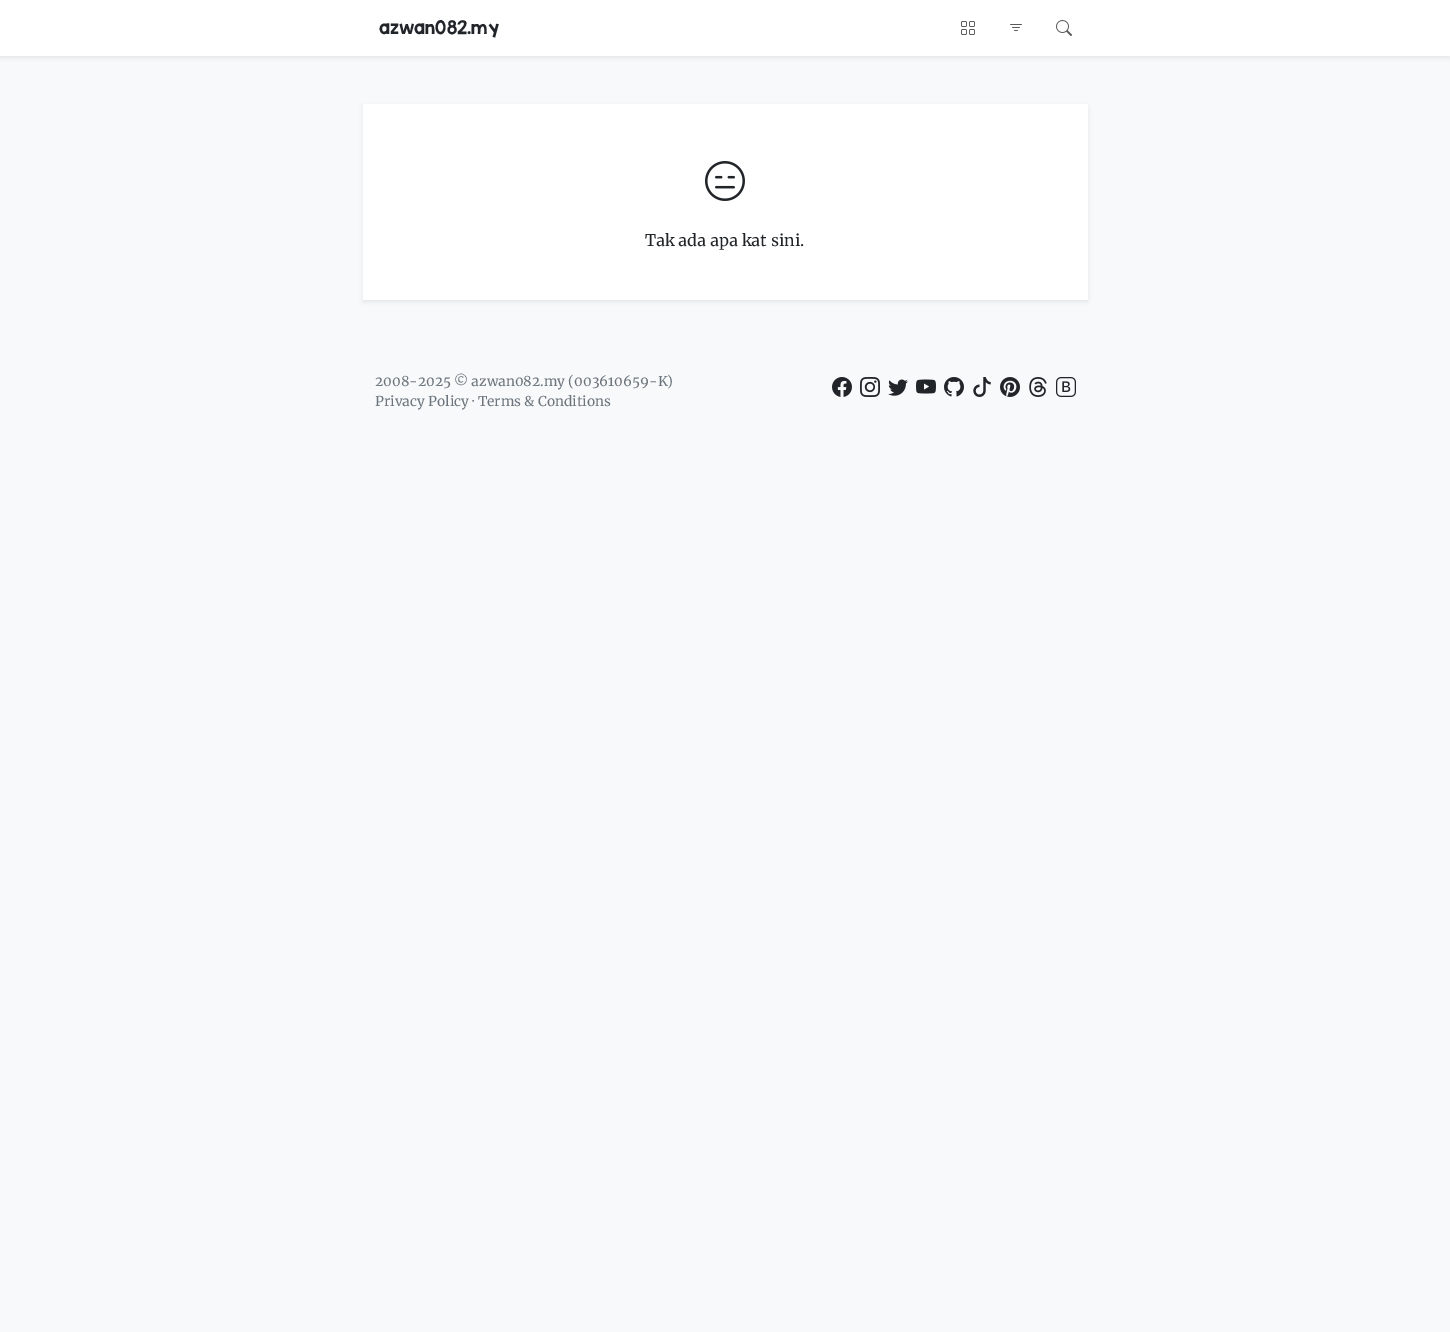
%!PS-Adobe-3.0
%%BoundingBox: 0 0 1450 1332
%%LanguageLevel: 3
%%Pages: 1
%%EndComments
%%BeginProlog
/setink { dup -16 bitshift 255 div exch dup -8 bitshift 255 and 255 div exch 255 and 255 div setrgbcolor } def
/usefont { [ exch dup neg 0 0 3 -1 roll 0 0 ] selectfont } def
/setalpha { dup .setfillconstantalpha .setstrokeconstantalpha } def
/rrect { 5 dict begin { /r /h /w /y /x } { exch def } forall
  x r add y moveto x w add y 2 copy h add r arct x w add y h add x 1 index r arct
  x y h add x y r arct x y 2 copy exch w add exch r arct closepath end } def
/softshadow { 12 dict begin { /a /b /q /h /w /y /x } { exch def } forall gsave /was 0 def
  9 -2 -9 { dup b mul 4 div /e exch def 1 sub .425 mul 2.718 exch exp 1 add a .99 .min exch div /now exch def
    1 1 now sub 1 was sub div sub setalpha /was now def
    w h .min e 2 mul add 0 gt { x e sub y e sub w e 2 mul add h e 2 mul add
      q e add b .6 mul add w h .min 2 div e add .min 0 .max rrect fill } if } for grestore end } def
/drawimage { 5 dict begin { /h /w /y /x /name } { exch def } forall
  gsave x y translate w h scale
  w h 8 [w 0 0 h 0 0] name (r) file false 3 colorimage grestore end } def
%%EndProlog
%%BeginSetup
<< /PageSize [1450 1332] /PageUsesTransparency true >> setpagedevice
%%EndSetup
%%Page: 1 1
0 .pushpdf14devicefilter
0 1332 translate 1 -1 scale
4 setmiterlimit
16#F8F9FA setink
0 0 1450 1332 rectfill
16#000000 setink
0 2 1450 56 0 2 0.07 softshadow
16#FFFFFF setink
0 0 1450 56 rectfill
/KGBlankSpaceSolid-Regular 16 usefont
16#212529 setink
379 34 moveto (azwan082.my) show
(img1.raw) 961 21 14 14 drawimage
(img2.raw) 1010 24 12 7 drawimage
(img3.raw) 1056 20 16 16 drawimage
16#000000 setink
363 106 725 196 0 2 0.07 softshadow
16#FFFFFF setink
363 104 725 196 rectfill
(img4.raw) 705 161 40 40 drawimage
/Merriweather-Regular 16 usefont
16#212529 setink
645 246 moveto (Tak ada apa kat sini.) show
/Merriweather-Regular 13.6 usefont
16#6C757D setink
375 386 moveto (2008-2025 © azwan082.my \(003610659-K\)) show
375 406 moveto (Privacy Policy · Terms & Conditions) show
(img5.raw) 832 377 20 20 drawimage
(img6.raw) 860 377 20 20 drawimage
(img7.raw) 888 379 20 17 drawimage
(img8.raw) 916 379 20 15 drawimage
(img9.raw) 944 377 20 20 drawimage
(img10.raw) 973 377 18 20 drawimage
(img11.raw) 1000 377 20 20 drawimage
(img12.raw) 1029 377 18 20 drawimage
(img13.raw) 1056 377 20 20 drawimage
.poppdf14devicefilter showpage
%%EOF
